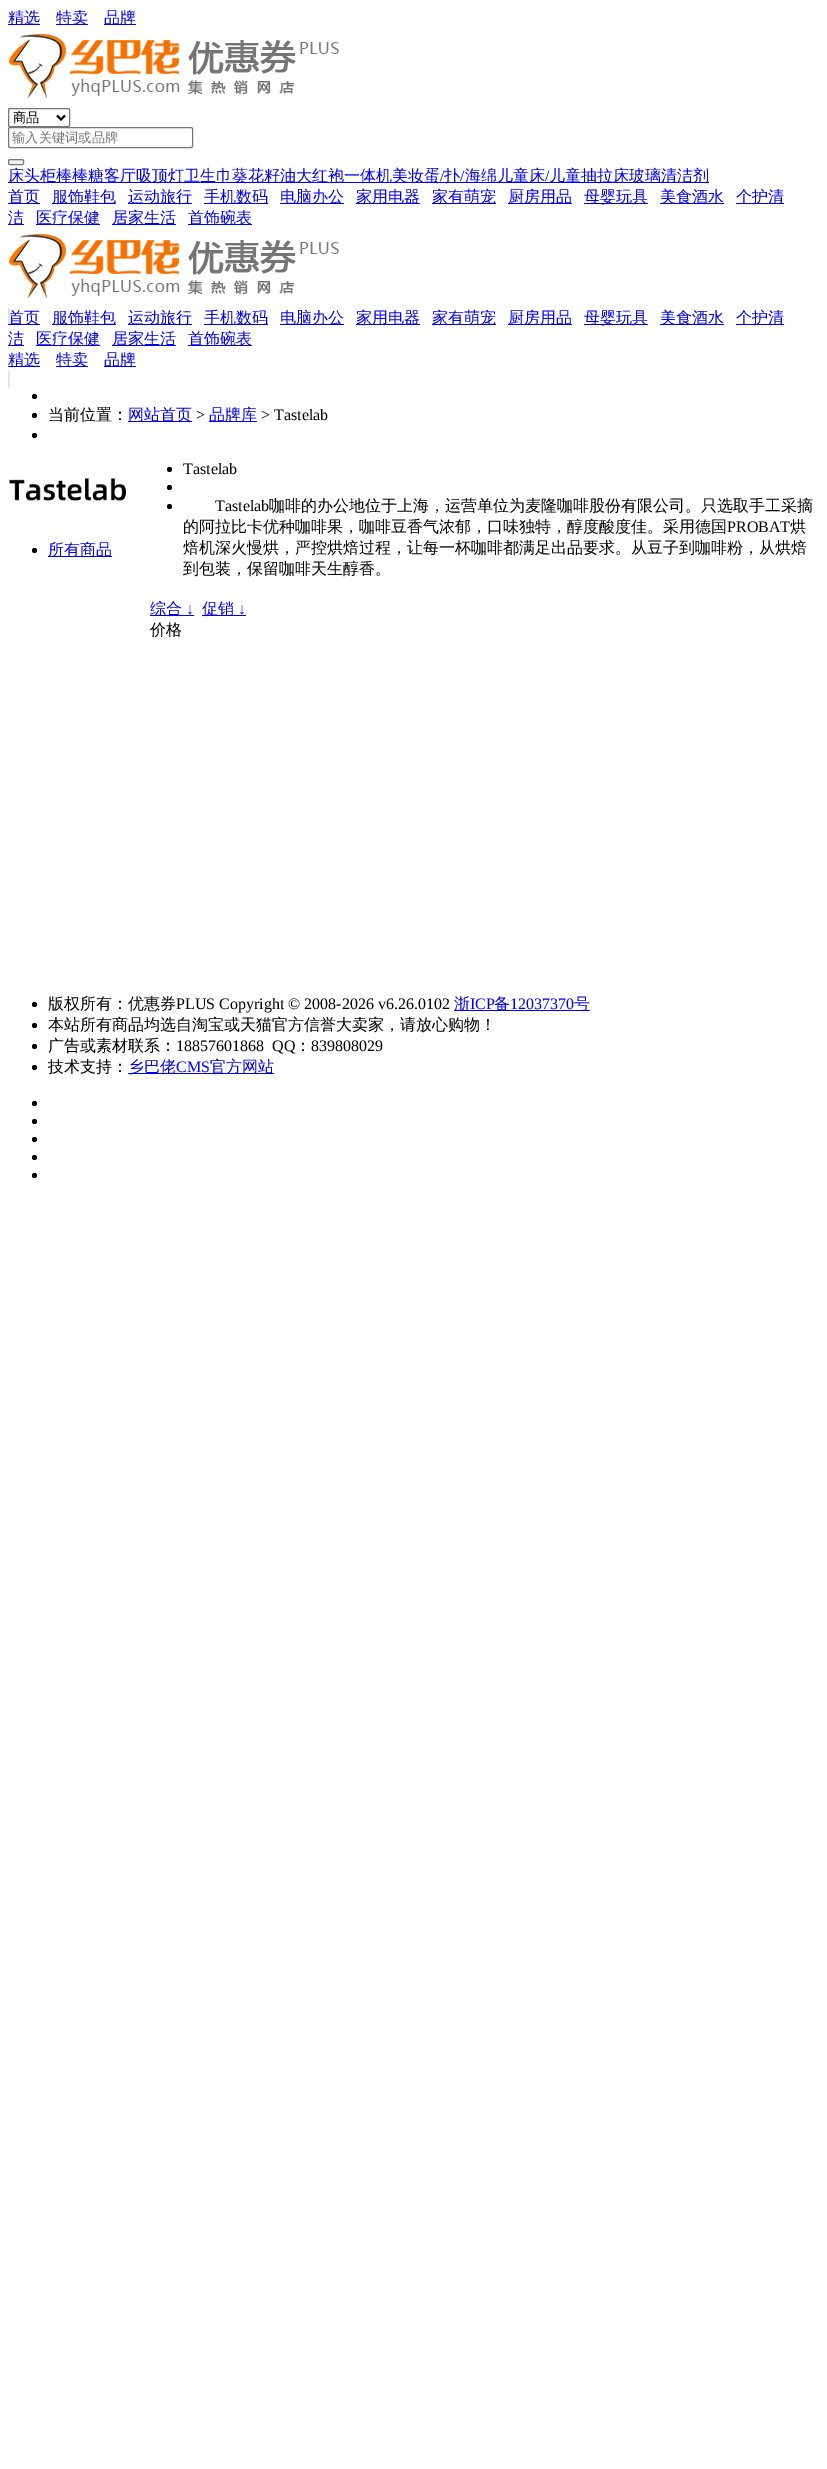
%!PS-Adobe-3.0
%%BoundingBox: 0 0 827 2469
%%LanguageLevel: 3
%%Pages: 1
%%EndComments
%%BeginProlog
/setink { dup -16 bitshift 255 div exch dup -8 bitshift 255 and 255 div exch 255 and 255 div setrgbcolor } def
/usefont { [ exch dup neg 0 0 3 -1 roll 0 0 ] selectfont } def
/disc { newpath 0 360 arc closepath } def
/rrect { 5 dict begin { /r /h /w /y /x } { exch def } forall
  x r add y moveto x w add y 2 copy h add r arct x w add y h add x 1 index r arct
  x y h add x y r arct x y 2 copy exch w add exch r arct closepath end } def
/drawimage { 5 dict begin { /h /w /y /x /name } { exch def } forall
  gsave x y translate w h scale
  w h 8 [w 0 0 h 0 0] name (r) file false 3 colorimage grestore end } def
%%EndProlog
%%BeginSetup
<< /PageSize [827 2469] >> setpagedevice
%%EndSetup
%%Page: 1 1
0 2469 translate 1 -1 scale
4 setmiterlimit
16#FFFFFF setink
0 0 827 2469 rectfill
16#0000EE setink
8 24 32 1 rectfill
/WenQuanYiZenHei-Medium 16 usefont
8 23 moveto (精选) show
56 24 32 1 rectfill
56 23 moveto (特卖) show
104 24 32 1 rectfill
104 23 moveto (品牌) show
(img1.raw) 9 34 330 65 drawimage
16#767676 setink
8.5 108.5 61 18 1.5 rrect stroke
16#000000 setink
2 setlinewidth
57 115.5 moveto 61 119.5 lineto 65 115.5 lineto stroke
/WenQuanYiZenHei-Medium 13.25 usefont
13 122 moveto (商品) show
16#767676 setink
1 setlinewidth
8.5 127.5 184 20 1.5 rrect stroke
16#757575 setink
12 142 moveto (输入关键词或品牌) show
16#EFEFEF setink
8.5 159.5 15 5 1.5 rrect gsave fill grestore
16#767676 setink
stroke
16#0000EE setink
8 182 701 1 rectfill
/WenQuanYiZenHei-Medium 16 usefont
8 181 moveto (床头柜棒棒糖客厅吸顶灯卫生巾葵花籽油大红袍一体机美妆蛋) show
/LiberationSerif-Regular 16 usefont
440 181 moveto (/) show
/WenQuanYiZenHei-Medium 16 usefont
444 181 moveto (扑) show
/LiberationSerif-Regular 16 usefont
460 181 moveto (/) show
/WenQuanYiZenHei-Medium 16 usefont
465 181 moveto (海绵儿童床) show
/LiberationSerif-Regular 16 usefont
545 181 moveto (/) show
/WenQuanYiZenHei-Medium 16 usefont
549 181 moveto (儿童抽拉床玻璃清洁剂) show
8 203 32 1 rectfill
8 202 moveto (首页) show
52 203 64 1 rectfill
52 202 moveto (服饰鞋包) show
128 203 64 1 rectfill
128 202 moveto (运动旅行) show
204 203 64 1 rectfill
204 202 moveto (手机数码) show
280 203 64 1 rectfill
280 202 moveto (电脑办公) show
356 203 64 1 rectfill
356 202 moveto (家用电器) show
432 203 64 1 rectfill
432 202 moveto (家有萌宠) show
508 203 64 1 rectfill
508 202 moveto (厨房用品) show
584 203 64 1 rectfill
584 202 moveto (母婴玩具) show
660 203 64 1 rectfill
660 202 moveto (美食酒水) show
736 203 48 1 rectfill
736 202 moveto (个护清) show
8 224 16 1 rectfill
8 223 moveto (洁) show
36 224 64 1 rectfill
36 223 moveto (医疗保健) show
112 224 64 1 rectfill
112 223 moveto (居家生活) show
188 224 64 1 rectfill
188 223 moveto (首饰碗表) show
(img1.raw) 9 234 330 65 drawimage
8 324 32 1 rectfill
8 323 moveto (首页) show
[
    [9 308 1 16 16#E3E3E3]
    [8 323 2 1 16#E3E3E3]
    [8 308 1 16 16#E3E3E3]
    [52 324 64 1 16#0000EE]
] { aload pop setink rectfill } forall
52 323 moveto (服饰鞋包) show
128 324 64 1 rectfill
128 323 moveto (运动旅行) show
204 324 64 1 rectfill
204 323 moveto (手机数码) show
280 324 64 1 rectfill
280 323 moveto (电脑办公) show
356 324 64 1 rectfill
356 323 moveto (家用电器) show
432 324 64 1 rectfill
432 323 moveto (家有萌宠) show
508 324 64 1 rectfill
508 323 moveto (厨房用品) show
584 324 64 1 rectfill
584 323 moveto (母婴玩具) show
660 324 64 1 rectfill
660 323 moveto (美食酒水) show
736 324 48 1 rectfill
736 323 moveto (个护清) show
8 345 16 1 rectfill
8 344 moveto (洁) show
36 345 64 1 rectfill
36 344 moveto (医疗保健) show
112 345 64 1 rectfill
112 344 moveto (居家生活) show
188 345 64 1 rectfill
188 344 moveto (首饰碗表) show
8 366 32 1 rectfill
8 365 moveto (精选) show
56 366 32 1 rectfill
56 365 moveto (特卖) show
104 366 32 1 rectfill
104 365 moveto (品牌) show
16#E3E3E3 setink
8 371 2 17 rectfill
16#000000 setink
34.5 396.5 2.5 disc fill
34.5 415.5 2.5 disc fill
48 420 moveto (当前位置：) show
16#0000EE setink
128 421 64 1 rectfill
128 420 moveto (网站首页) show
/LiberationSerif-Regular 16 usefont
16#000000 setink
196 420 moveto (>) show
16#0000EE setink
209 421 48 1 rectfill
/WenQuanYiZenHei-Medium 16 usefont
209 420 moveto (品牌库) show
/LiberationSerif-Regular 16 usefont
16#000000 setink
261 420 moveto (> Tastelab) show
34.5 435.5 2.5 disc fill
(img2.raw) 9 478 117 23 drawimage
34.5 550.5 2.5 disc fill
16#0000EE setink
48 556 64 1 rectfill
/WenQuanYiZenHei-Medium 16 usefont
48 555 moveto (所有商品) show
16#000000 setink
169.5 469.5 2.5 disc fill
/LiberationSerif-Regular 16 usefont
183 474 moveto (Tastelab) show
169.5 487.5 2.5 disc fill
169.5 506.5 2.5 disc fill
215 511 moveto (Tastelab) show
/WenQuanYiZenHei-Medium 16 usefont
269 511 moveto (咖啡的办公地位于上海，运营单位为麦隆咖啡股份有限公司。只选取手工采摘) show
183 532 moveto (的阿拉比卡优种咖啡果，咖啡豆香气浓郁，口味独特，醇度酸度佳。采用德国) show
/LiberationSerif-Regular 16 usefont
727 532 moveto (PROBAT) show
/WenQuanYiZenHei-Medium 16 usefont
[
    [(烘) 790 532]
    [(焙机深火慢烘，严控烘焙过程，让每一杯咖啡都满足出品要求。从豆子到咖啡粉，从烘焙) 183 553]
    [(到包装，保留咖啡天生醇香。) 183 574]
] { aload pop moveto show } forall
16#0000EE setink
150 615 44 1 rectfill
150 614 moveto (综合) show
/LiberationSerif-Regular 16 usefont
186 614 moveto (↓) show
202 615 44 1 rectfill
/WenQuanYiZenHei-Medium 16 usefont
202 614 moveto (促销) show
/LiberationSerif-Regular 16 usefont
238 614 moveto (↓) show
/WenQuanYiZenHei-Medium 16 usefont
16#000000 setink
150 635 moveto (价格) show
34.5 1004.5 2.5 disc fill
48 1009 moveto (版权所有：优惠券) show
/LiberationSerif-Regular 16 usefont
176 1009 moveto (PLUS Copyright © 2008-2026 v6.26.0102) show
16#0000EE setink
454 1010 136 1 rectfill
/WenQuanYiZenHei-Medium 16 usefont
454 1009 moveto (浙) show
/LiberationSerif-Regular 16 usefont
470 1009 moveto (ICP) show
/WenQuanYiZenHei-Medium 16 usefont
494 1009 moveto (备) show
/LiberationSerif-Regular 16 usefont
510 1009 moveto (12037370) show
/WenQuanYiZenHei-Medium 16 usefont
574 1009 moveto (号) show
16#000000 setink
34.5 1025.5 2.5 disc fill
48 1030 moveto (本站所有商品均选自淘宝或天猫官方信誉大卖家，请放心购物！) show
34.5 1046.5 2.5 disc fill
48 1051 moveto (广告或素材联系：) show
/LiberationSerif-Regular 16 usefont
176 1051 moveto (18857601868  QQ) show
/WenQuanYiZenHei-Medium 16 usefont
295 1051 moveto (：) show
/LiberationSerif-Regular 16 usefont
311 1051 moveto (839808029) show
34.5 1067.5 2.5 disc fill
/WenQuanYiZenHei-Medium 16 usefont
48 1072 moveto (技术支持：) show
16#0000EE setink
128 1073 146 1 rectfill
128 1072 moveto (乡巴佬) show
/LiberationSerif-Regular 16 usefont
176 1072 moveto (CMS) show
/WenQuanYiZenHei-Medium 16 usefont
210 1072 moveto (官方网站) show
16#000000 setink
34.5 1103.5 2.5 disc fill
34.5 1121.5 2.5 disc fill
34.5 1139.5 2.5 disc fill
34.5 1157.5 2.5 disc fill
34.5 1175.5 2.5 disc fill
showpage
%%EOF
